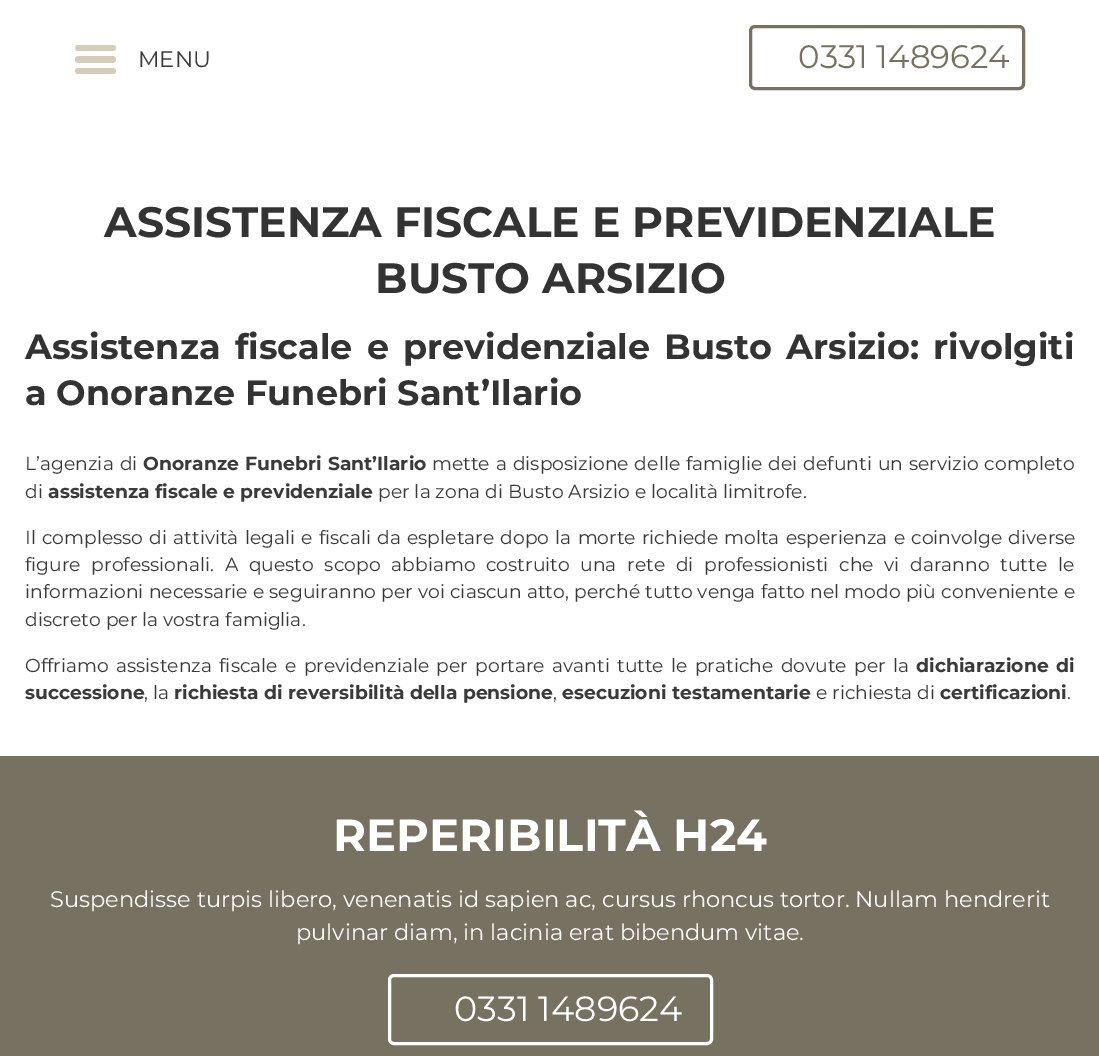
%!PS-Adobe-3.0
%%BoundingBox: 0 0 1099 1056
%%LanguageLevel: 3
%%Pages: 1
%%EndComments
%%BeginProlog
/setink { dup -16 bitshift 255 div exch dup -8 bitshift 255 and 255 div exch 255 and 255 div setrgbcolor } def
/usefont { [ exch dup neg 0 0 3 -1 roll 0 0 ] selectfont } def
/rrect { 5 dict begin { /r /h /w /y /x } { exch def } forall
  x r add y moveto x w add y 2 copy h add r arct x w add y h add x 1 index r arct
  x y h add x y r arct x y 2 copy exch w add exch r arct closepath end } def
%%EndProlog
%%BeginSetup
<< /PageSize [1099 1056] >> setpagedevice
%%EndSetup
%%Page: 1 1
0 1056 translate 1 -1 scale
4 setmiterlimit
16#FFFFFF setink
0 0 1099 1056 rectfill
16#D5CDB9 setink
78 45 moveto 96 45 lineto 96 51 lineto 78 51 lineto 76.5 51 75 49.5 75 48 curveto 75 46.5 76.5 45 78 45 curveto closepath fill
96 45 moveto 113 45 lineto 114.5 45 116 46.5 116 48 curveto 116 49.5 114.5 51 113 51 curveto 96 51 lineto closepath fill
78.5 56 moveto 96 56 lineto 96 63 lineto 78.5 63 lineto 76.5 63 75 61.5 75 59.5 curveto 75 57.5 76.5 56 78.5 56 curveto closepath fill
96 56 moveto 112.5 56 lineto 114.5 56 116 57.5 116 59.5 curveto 116 61.5 114.5 63 112.5 63 curveto 96 63 lineto closepath fill
78 68 moveto 96 68 lineto 96 74 lineto 78 74 lineto 76.5 74 75 72.5 75 71 curveto 75 69.5 76.5 68 78 68 curveto closepath fill
96 68 moveto 113 68 lineto 114.5 68 116 69.5 116 71 curveto 116 72.5 114.5 74 113 74 curveto 96 74 lineto closepath fill
/Montserrat-Regular 22.5 usefont
16#3A3A3A setink
138 67 moveto (MENU) show
16#767161 setink
3 setlinewidth
750.5 26.5 273 62 4.5 rrect stroke
/Montserrat-Regular 32.5 usefont
798 68 moveto (0331 1489624) show
/Montserrat-Bold 42.5 usefont
16#333333 setink
104 237 moveto (ASSISTENZA FISCALE E PREVIDENZIALE) show
375 293 moveto (BUSTO ARSIZIO) show
/Montserrat-Bold 35 usefont
25 359 moveto 4.5 0 32 (Assistenza fiscale e previdenziale Busto Arsizio: rivolgiti) widthshow
25 405 moveto (a Onoranze Funebri Sant’Ilario) show
/Montserrat-Regular 18.75 usefont
16#3A3A3A setink
25 470 moveto 1 0 32 (L’agenzia di) widthshow
/Montserrat-Bold 18.75 usefont
143 470 moveto 1 0 32 (Onoranze Funebri Sant’Ilario) widthshow
/Montserrat-Regular 18.75 usefont
432 470 moveto 1 0 32 (mette a disposizione delle famiglie dei defunti un servizio completo) widthshow
25 498 moveto (di) show
/Montserrat-Bold 18.75 usefont
48 498 moveto (assistenza fiscale e previdenziale) show
/Montserrat-Regular 18.75 usefont
378 498 moveto (per la zona di Busto Arsizio e località limitrofe.) show
25 544 moveto 1.25 0 32 (Il complesso di attività legali e fiscali da espletare dopo la morte richiede molta esperienza e coinvolge diverse) widthshow
25 571 moveto 5.75 0 32 (figure professionali. A questo scopo abbiamo costruito una rete di professionisti che vi daranno tutte le) widthshow
25 598 moveto 0.25 0 32 (informazioni necessarie e seguiranno per voi ciascun atto, perché tutto venga fatto nel modo più conveniente e) widthshow
25 626 moveto (discreto per la vostra famiglia.) show
25 672 moveto 2.4 0 32 (Offriamo assistenza fiscale e previdenziale per portare avanti tutte le pratiche dovute per la) widthshow
/Montserrat-Bold 18.75 usefont
916 672 moveto 2.4 0 32 (dichiarazione di) widthshow
25 699 moveto (successione) show
/Montserrat-Regular 18.75 usefont
144 699 moveto (, la) show
/Montserrat-Bold 18.75 usefont
174 699 moveto (richiesta di reversibilità della pensione) show
/Montserrat-Regular 18.75 usefont
553 699 moveto (,) show
/Montserrat-Bold 18.75 usefont
562 699 moveto (esecuzioni testamentarie) show
/Montserrat-Regular 18.75 usefont
816 699 moveto (e richiesta di) show
/Montserrat-Bold 18.75 usefont
940 699 moveto (certificazioni) show
/Montserrat-Regular 18.75 usefont
1067 699 moveto (.) show
16#767161 setink
0 756 1099 300 rectfill
/Montserrat-Bold 45 usefont
16#FFFFFF setink
333 851 moveto (REPERIBILITÀ H24) show
/Montserrat-Regular 22.5 usefont
50 907 moveto (Suspendisse turpis libero, venenatis id sapien ac, cursus rhoncus tortor. Nullam hendrerit) show
296 940 moveto (pulvinar diam, in lacinia erat bibendum vitae.) show
389.5 975.5 322 68 4.5 rrect stroke
/Montserrat-Regular 35 usefont
454 1021 moveto (0331 1489624) show
showpage
%%EOF
